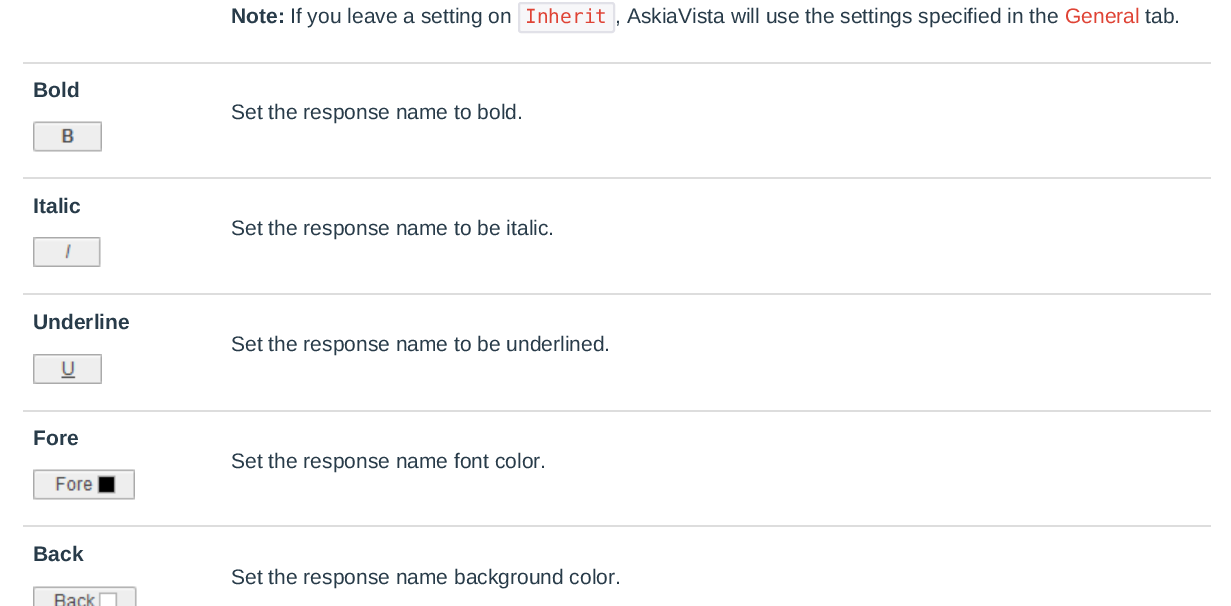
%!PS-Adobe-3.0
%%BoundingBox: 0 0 1231 606
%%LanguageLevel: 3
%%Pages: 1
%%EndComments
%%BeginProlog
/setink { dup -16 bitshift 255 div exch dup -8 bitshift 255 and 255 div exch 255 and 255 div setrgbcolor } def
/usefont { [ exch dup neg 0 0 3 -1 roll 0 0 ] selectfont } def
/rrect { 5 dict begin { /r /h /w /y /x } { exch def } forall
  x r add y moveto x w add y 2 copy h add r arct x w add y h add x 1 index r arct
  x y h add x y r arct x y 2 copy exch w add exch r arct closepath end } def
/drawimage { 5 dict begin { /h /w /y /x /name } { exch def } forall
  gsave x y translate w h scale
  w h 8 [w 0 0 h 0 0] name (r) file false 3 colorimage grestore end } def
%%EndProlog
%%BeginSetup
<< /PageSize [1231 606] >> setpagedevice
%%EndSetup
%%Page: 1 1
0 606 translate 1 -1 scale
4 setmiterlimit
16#FFFFFF setink
0 0 1231 606 rectfill
16#DDDDDD setink
23 62 1188 2 rectfill
/LiberationSans-Bold 21 usefont
16#283B49 setink
231 23 moveto (Note:) show
/LiberationSans-Regular 21 usefont
290 23 moveto (If you leave a setting on) show
16#F7F7F9 setink
519 3 95 29 2 rrect gsave fill grestore
16#E1E1E8 setink
2 setlinewidth
stroke
/DejaVuSansMono-Regular 19.5 usefont
16#DF4335 setink
525 23 moveto (Inherit) show
/LiberationSans-Regular 21 usefont
16#283B49 setink
615 23 moveto (, AskiaVista will use the settings specified in the) show
16#DF4335 setink
1065 23 moveto (General) show
16#283B49 setink
1145 23 moveto (tab.) show
16#DDDDDD setink
23 177 1188 2 rectfill
/LiberationSans-Bold 21 usefont
16#283B49 setink
33 97 moveto (Bold) show
(img1.raw) 33 121 69 31 drawimage
/LiberationSans-Regular 21 usefont
231 119 moveto (Set the response name to bold.) show
16#DDDDDD setink
23 293 1188 2 rectfill
/LiberationSans-Bold 21 usefont
16#283B49 setink
33 213 moveto (Italic) show
(img2.raw) 33 237 68 30 drawimage
/LiberationSans-Regular 21 usefont
231 235 moveto (Set the response name to be italic.) show
16#DDDDDD setink
23 410 1188 2 rectfill
/LiberationSans-Bold 21 usefont
16#283B49 setink
33 329 moveto (Underline) show
(img3.raw) 33 354 69 30 drawimage
/LiberationSans-Regular 21 usefont
231 351 moveto (Set the response name to be underlined.) show
16#DDDDDD setink
23 525 1188 2 rectfill
/LiberationSans-Bold 21 usefont
16#283B49 setink
33 445 moveto (Fore) show
(img4.raw) 33 469 102 31 drawimage
/LiberationSans-Regular 21 usefont
231 468 moveto (Set the response name font color.) show
/LiberationSans-Bold 21 usefont
33 561 moveto (Back) show
(img5.raw) 33 586 104 20 drawimage
/LiberationSans-Regular 21 usefont
231 584 moveto (Set the response name background color.) show
showpage
%%EOF
